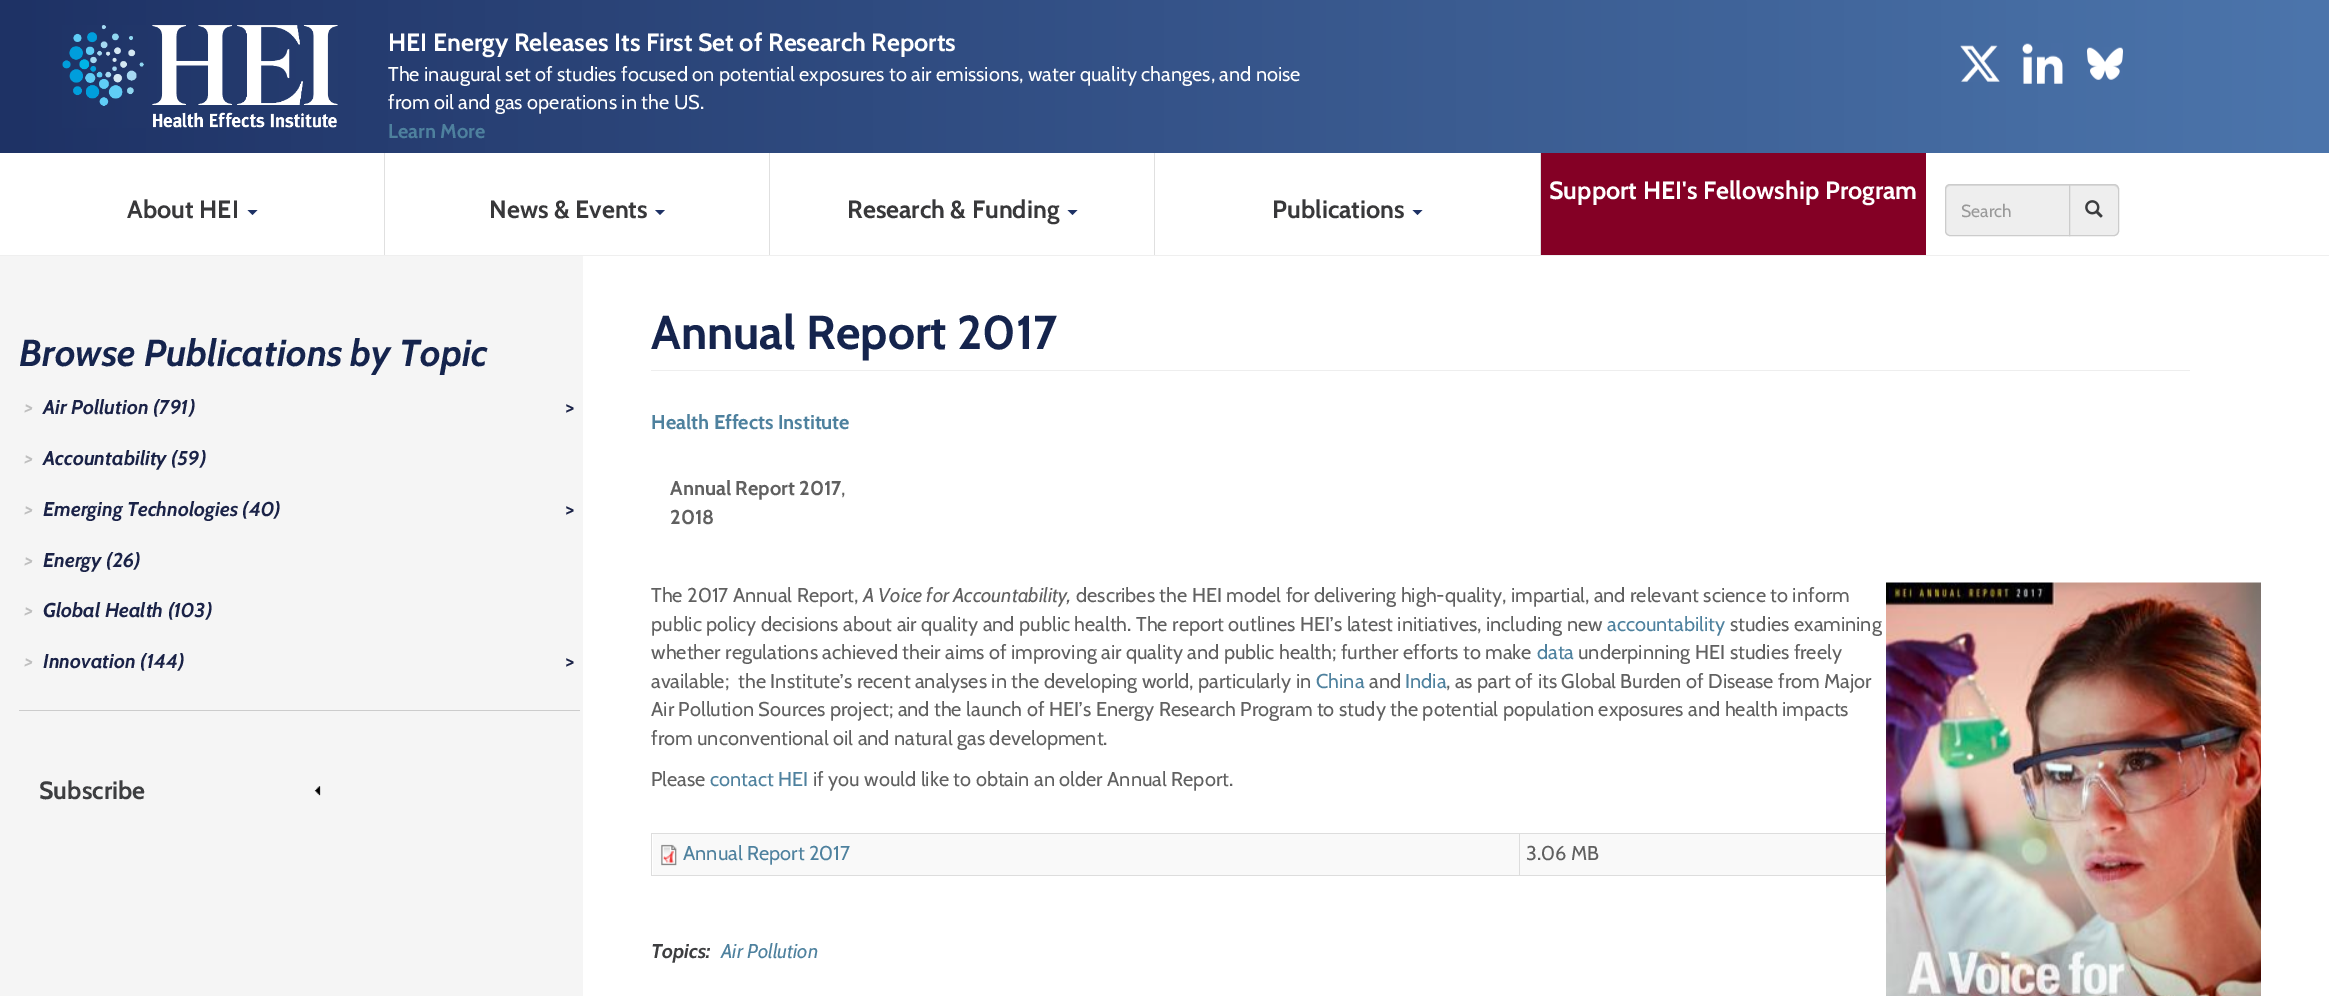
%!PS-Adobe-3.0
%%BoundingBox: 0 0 2329 996
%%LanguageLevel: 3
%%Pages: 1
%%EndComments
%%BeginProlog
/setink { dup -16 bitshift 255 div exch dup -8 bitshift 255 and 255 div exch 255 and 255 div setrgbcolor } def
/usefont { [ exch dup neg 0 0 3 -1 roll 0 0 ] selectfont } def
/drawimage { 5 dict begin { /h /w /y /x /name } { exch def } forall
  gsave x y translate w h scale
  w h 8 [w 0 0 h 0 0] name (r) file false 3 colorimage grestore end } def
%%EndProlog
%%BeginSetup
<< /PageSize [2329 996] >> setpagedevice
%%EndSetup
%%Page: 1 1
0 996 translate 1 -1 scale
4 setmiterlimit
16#FFFFFF setink
0 0 2329 996 rectfill
gsave 0 0 moveto 2329 0 lineto 2329 153 lineto 0 153 lineto closepath clip newpath
<< /ShadingType 2 /ColorSpace /DeviceRGB /Coords [0 76 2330 76] /Extend [true true] /Function << /FunctionType 2 /Domain [0 1] /C0 [0.118 0.196 0.396] /C1 [0.298 0.459 0.675] /N 1 >> >> shfill grestore
(img1.raw) 62 25 276 103 drawimage
/Cabin-Bold 25 usefont
388 51 moveto (HEI Energy Releases Its First Set of Research Reports) show
/Cabin-Regular 20 usefont
388 81 moveto (The inaugural set of studies focused on potential exposures to air emissions, water quality changes, and noise) show
388 109 moveto (from oil and gas operations in the US.) show
/Cabin-Bold 20 usefont
16#4E819E setink
388 138 moveto (Learn More) show
(img2.raw) 1960 45 40 37 drawimage
(img3.raw) 2022 43 41 41 drawimage
(img4.raw) 2087 47 36 33 drawimage
16#840025 setink
1541 153 385 102 rectfill
/Cabin-Bold 25 usefont
16#FFFFFF setink
1549 199 moveto (Support HEI's Fellowship Program) show
16#E0E0E0 setink
384 153 1 102 rectfill
16#38383A setink
127 218 moveto (About HEI) show
16#1E3265 setink
247.5 210 moveto 257.5 210 lineto 252.5 215 lineto closepath fill
16#E0E0E0 setink
769 153 1 102 rectfill
16#38383A setink
489 218 moveto (News & Events) show
16#1E3265 setink
655 210 moveto 665 210 lineto 660 215 lineto closepath fill
16#E0E0E0 setink
1154 153 1 102 rectfill
16#38383A setink
847 218 moveto (Research & Funding) show
16#1E3265 setink
1067.5 210 moveto 1077.5 210 lineto 1072.5 215 lineto closepath fill
16#E0E0E0 setink
1540 153 1 102 rectfill
16#38383A setink
1272 218 moveto (Publications) show
16#1E3265 setink
1412.5 210 moveto 1422.5 210 lineto 1417.5 215 lineto closepath fill
16#EEEEEE setink
1950 184 moveto 2070 184 lineto 2070 236 lineto 1950 236 lineto 1947 236 1945 234 1945 231 curveto 1945 189 lineto 1945 186 1947 184 1950 184 curveto closepath fill
16#DCDCDC setink
1950 186 moveto 2069 186 lineto 2069 185 lineto 1950 185 lineto 1948 185 1946 187 1946 189 curveto 1946 190 lineto 1946 188 1948 186 1950 186 curveto closepath fill
16#CCCCCC setink
1950 184.5 moveto 2069.5 184.5 lineto 2069.5 235.5 lineto 1950 235.5 lineto 1947.5 235.5 1945.5 233.5 1945.5 231 curveto 1945.5 189 lineto 1945.5 186.5 1947.5 184.5 1950 184.5 curveto closepath stroke
/Cabin-Regular 17.5 usefont
16#999999 setink
1961 217 moveto (Search) show
16#EEEEEE setink
2069 184 moveto 2114 184 lineto 2117 184 2119 186 2119 189 curveto 2119 231 lineto 2119 234 2117 236 2114 236 curveto 2069 236 lineto closepath fill
16#DCDCDC setink
2070 186 moveto 2114 186 lineto 2116 186 2118 188 2118 190 curveto 2118 189 lineto 2118 187 2116 185 2114 185 curveto 2070 185 lineto closepath fill
16#CCCCCC setink
2069.5 184.5 moveto 2114 184.5 lineto 2116.5 184.5 2118.5 186.5 2118.5 189 curveto 2118.5 231 lineto 2118.5 233.5 2116.5 235.5 2114 235.5 curveto 2069.5 235.5 lineto closepath stroke
(img5.raw) 2085 200 18 18 drawimage
[
    [0 255 2329 1 16#EFEFEF]
    [0 256 583 740 16#F5F5F5]
    [19 710 561 1 16#CCCCCC]
] { aload pop setink rectfill } forall
/Cabin-BoldItalic 37.5 usefont
16#15244D setink
19 366 moveto (Browse Publications by Topic) show
/Cabin-BoldItalic 20 usefont
16#BFBFBF setink
25 414 moveto (>) show
16#1A2247 setink
43 414 moveto (Air Pollution \(791\)) show
/Cabin-Bold 20 usefont
566 414 moveto (>) show
/Cabin-BoldItalic 20 usefont
16#BFBFBF setink
25 465 moveto (>) show
16#1A2247 setink
43 465 moveto (Accountability \(59\)) show
16#BFBFBF setink
25 516 moveto (>) show
16#1A2247 setink
43 516 moveto (Emerging Technologies \(40\)) show
/Cabin-Bold 20 usefont
566 516 moveto (>) show
/Cabin-BoldItalic 20 usefont
16#BFBFBF setink
25 567 moveto (>) show
16#1A2247 setink
43 567 moveto (Energy \(26\)) show
16#BFBFBF setink
25 617 moveto (>) show
16#1A2247 setink
43 617 moveto (Global Health \(103\)) show
16#BFBFBF setink
25 668 moveto (>) show
16#1A2247 setink
43 668 moveto (Innovation \(144\)) show
/Cabin-Bold 20 usefont
566 668 moveto (>) show
(img6.raw) 314 786 7 10 drawimage
/Cabin-Bold 25 usefont
16#3D3E40 setink
39 799 moveto (Subscribe) show
16#EEEEEE setink
651 370 1539 1 rectfill
/Cabin-Bold 47.5 usefont
16#15244D setink
651 349 moveto (Annual Report 2017) show
/Cabin-Bold 20 usefont
16#4E819E setink
651 429 moveto (Health Effects Institute) show
16#606060 setink
670 495 moveto (Annual Report 2017) show
/Cabin-Regular 20 usefont
841 495 moveto (,) show
/Cabin-Bold 20 usefont
670 524 moveto (2018) show
/Cabin-Regular 20 usefont
651 602 moveto (The 2017 Annual Report,) show
/Cabin-Italic 20 usefont
863 602 moveto (A Voice for Accountability,) show
/Cabin-Regular 20 usefont
1076 602 moveto (describes the HEI model for delivering high-quality, impartial, and relevant science to inform) show
(img7.raw) 1886 582 375 414 drawimage
651 631 moveto (public policy decisions about air quality and public health. The report outlines HEI’s latest initiatives, including new) show
16#4E819E setink
1607 631 moveto (accountability) show
16#606060 setink
1730 631 moveto (studies examining) show
651 659 moveto (whether regulations achieved their aims of improving air quality and public health; further efforts to make) show
16#4E819E setink
1537 659 moveto (data) show
16#606060 setink
1578 659 moveto (underpinning HEI studies freely) show
651 688 moveto (available;  the Institute’s recent analyses in the developing world, particularly in) show
16#4E819E setink
1316 688 moveto (China) show
16#606060 setink
1369 688 moveto (and) show
16#4E819E setink
1405 688 moveto (India) show
16#606060 setink
[
    [(, as part of its Global Burden of Disease from Major) 1446 688]
    [(Air Pollution Sources project; and the launch of HEI’s Energy Research Program to study the potential population exposures and health impacts) 651 716]
    [(from unconventional oil and natural gas development.) 651 745]
    [(Please) 651 786]
] { aload pop moveto show } forall
16#4E819E setink
710 786 moveto (contact HEI) show
16#606060 setink
813 786 moveto (if you would like to obtain an older Annual Report.) show
[
    [651 833 1235 1 16#DDDDDD]
    [1885 833 1 43 16#DDDDDD]
    [651 875 1235 1 16#DDDDDD]
    [651 833 1 43 16#DDDDDD]
    [653 834 1232 41 16#F9F9F9]
] { aload pop setink rectfill } forall
(img8.raw) 661 844 16 22 drawimage
16#4E819E setink
683 860 moveto (Annual Report 2017) show
16#DDDDDD setink
1519 833 1 43 rectfill
16#606060 setink
1526 860 moveto (3.06 MB) show
/Cabin-BoldItalic 20 usefont
16#3D3E40 setink
651 958 moveto (Topics:) show
/Cabin-Italic 20 usefont
16#4E819E setink
721 958 moveto (Air Pollution) show
showpage
%%EOF
